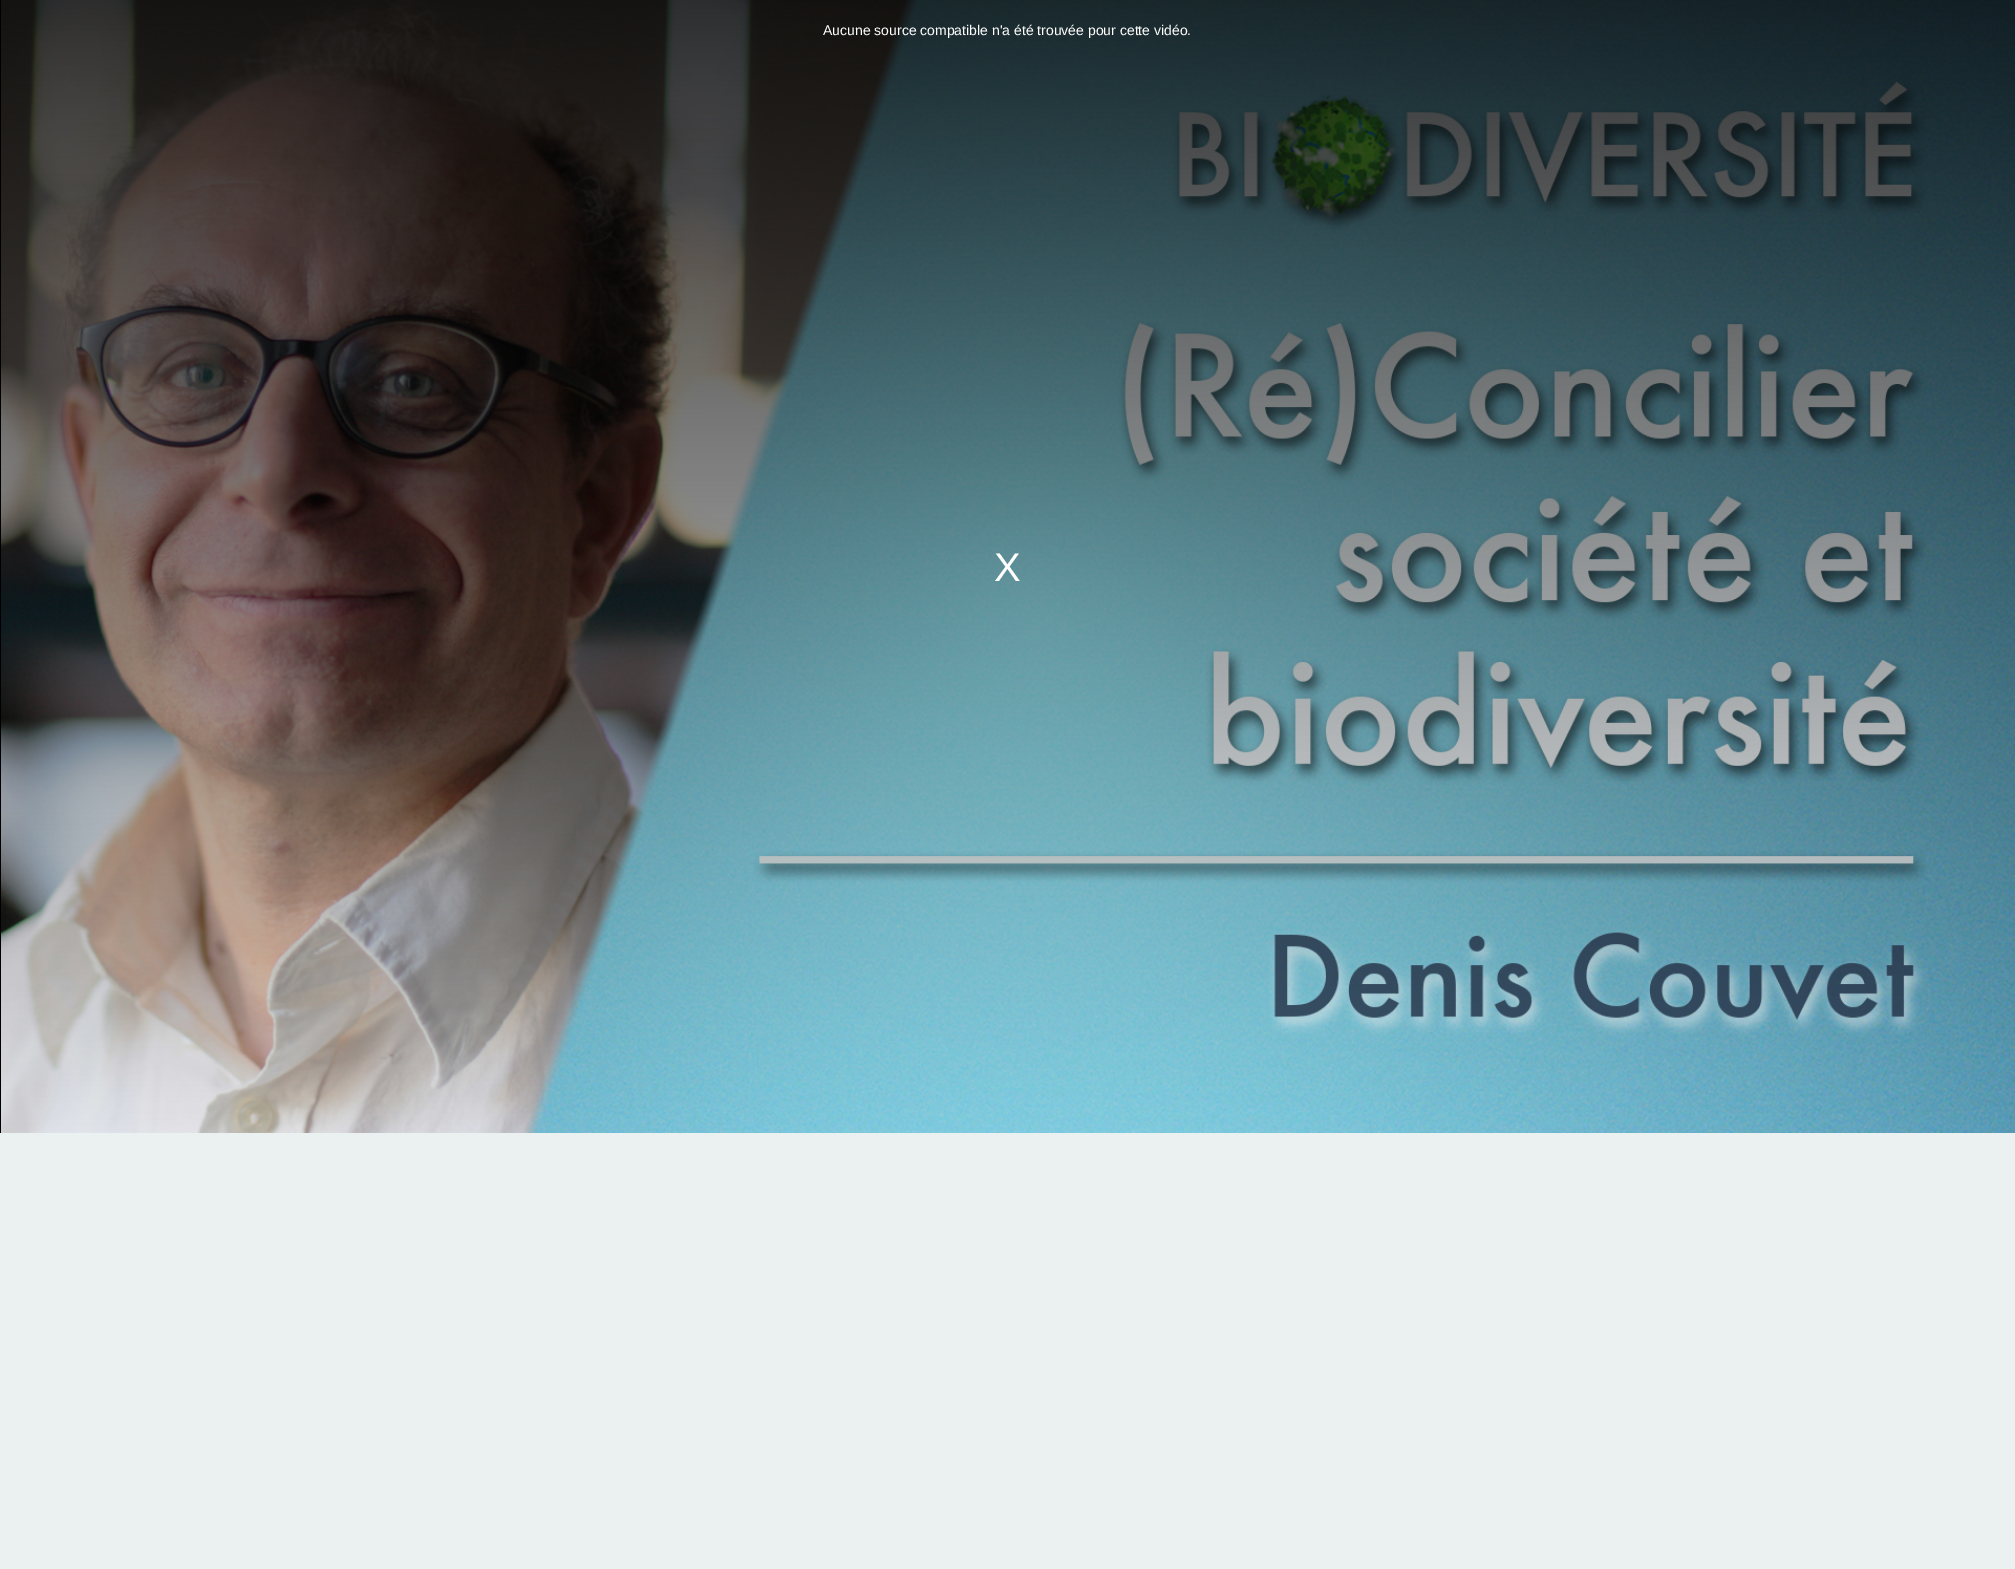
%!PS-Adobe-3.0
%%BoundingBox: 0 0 2015 1569
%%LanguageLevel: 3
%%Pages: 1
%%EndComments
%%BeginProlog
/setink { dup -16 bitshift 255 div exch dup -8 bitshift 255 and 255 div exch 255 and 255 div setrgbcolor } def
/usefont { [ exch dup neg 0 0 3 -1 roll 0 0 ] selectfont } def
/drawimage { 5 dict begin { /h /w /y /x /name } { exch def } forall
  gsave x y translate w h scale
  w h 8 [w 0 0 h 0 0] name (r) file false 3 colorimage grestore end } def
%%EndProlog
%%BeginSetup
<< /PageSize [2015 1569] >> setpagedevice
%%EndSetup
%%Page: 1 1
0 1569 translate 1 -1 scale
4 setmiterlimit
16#EBF0F0 setink
0 0 2015 1569 rectfill
16#000000 setink
0 0 1 1133 rectfill
(img1.raw) 1 0 2014 1133 drawimage
/LiberationSans-Regular 14 usefont
16#FFFFFF setink
823 35 moveto (Aucune source compatible n'a été trouvée pour cette vidéo.) show
/LiberationSans-Regular 40 usefont
994 581 moveto (X) show
showpage
%%EOF
